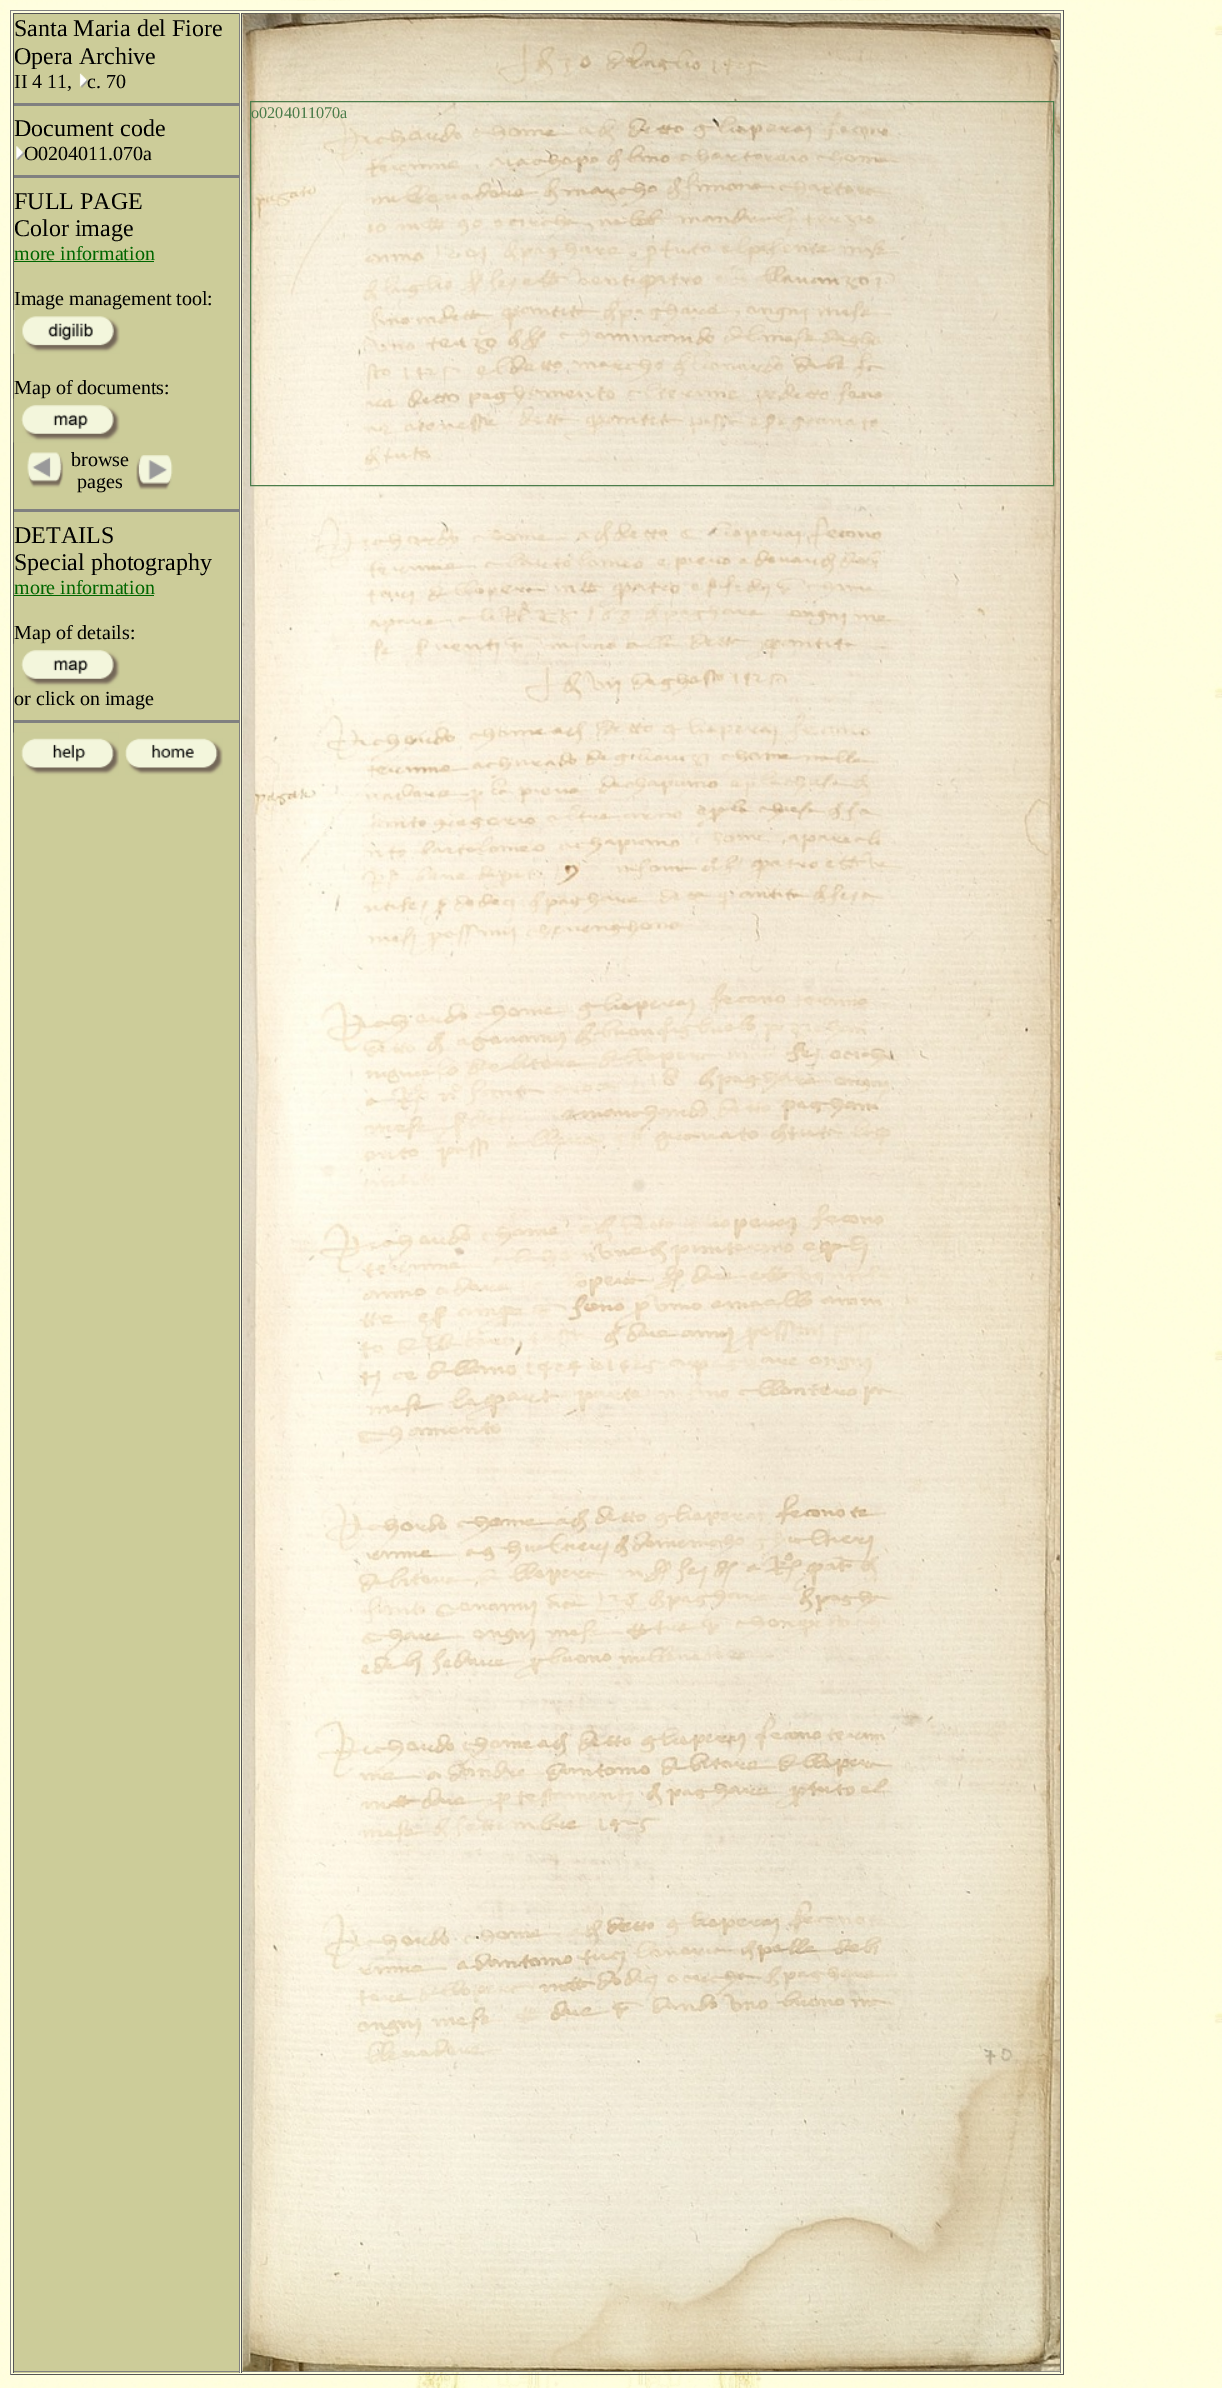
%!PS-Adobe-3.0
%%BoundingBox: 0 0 1222 2388
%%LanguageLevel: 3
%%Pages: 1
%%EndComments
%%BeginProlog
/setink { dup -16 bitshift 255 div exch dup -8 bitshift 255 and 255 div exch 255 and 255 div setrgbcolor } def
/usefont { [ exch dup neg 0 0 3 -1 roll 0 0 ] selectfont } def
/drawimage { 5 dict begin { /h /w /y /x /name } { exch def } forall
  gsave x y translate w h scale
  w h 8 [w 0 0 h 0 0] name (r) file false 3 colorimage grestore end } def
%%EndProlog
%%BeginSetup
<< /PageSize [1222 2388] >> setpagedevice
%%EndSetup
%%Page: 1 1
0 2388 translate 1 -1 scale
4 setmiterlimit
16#FFFFFF setink
0 0 1222 2388 rectfill
(img1.raw) 0 0 1222 2388 drawimage
[
    [10 10 1054 1 16#808080]
    [1063 10 1 2365 16#555555]
    [10 2374 1054 1 16#555555]
    [10 10 1 2365 16#808080]
    [14 14 225 2359 16#CCCC99]
    [13 13 227 1 16#555555]
    [239 13 1 2360 16#808080]
    [13 2371 227 1 16#808080]
    [13 13 1 2360 16#555555]
] { aload pop setink rectfill } forall
/LiberationSerif-Regular 24 usefont
16#000000 setink
14 36 moveto (Santa Maria del Fiore) show
14 64 moveto (Opera Archive) show
/LiberationSerif-Regular 20 usefont
14 88 moveto (II 4 11,) show
(img2.raw) 79 73 9 15 drawimage
87 88 moveto (c. 70) show
16#808080 setink
14 103 225 3 rectfill
/LiberationSerif-Regular 24 usefont
16#000000 setink
14 136 moveto (Document code) show
(img3.raw) 16 146 8 14 drawimage
/LiberationSerif-Regular 20 usefont
24 160 moveto (O0204011.070a) show
16#808080 setink
14 175 225 3 rectfill
/LiberationSerif-Regular 24 usefont
16#000000 setink
14 209 moveto (FULL PAGE) show
14 236 moveto (Color image) show
/LiberationSerif-Regular 20 usefont
16#006600 setink
14 260 moveto (more information) show
14 261 140 1 rectfill
16#000000 setink
14 305 moveto (Image management tool:) show
(img4.raw) 13 310 107 44 drawimage
14 394 moveto (Map of documents:) show
(img5.raw) 13 398 107 45 drawimage
(img6.raw) 27 452 37 36 drawimage
71 466 moveto (browse) show
77 488 moveto (pages) show
(img7.raw) 136 455 37 35 drawimage
16#808080 setink
14 509 225 3 rectfill
/LiberationSerif-Regular 24 usefont
16#000000 setink
14 543 moveto (DETAILS) show
14 570 moveto (Special photography) show
/LiberationSerif-Regular 20 usefont
16#006600 setink
14 594 moveto (more information) show
14 595 140 1 rectfill
16#000000 setink
14 639 moveto (Map of details:) show
(img5.raw) 13 643 107 45 drawimage
14 705 moveto (or click on image) show
16#808080 setink
14 720 225 3 rectfill
(img8.raw) 13 732 106 45 drawimage
(img9.raw) 125 738 98 37 drawimage
[
    [241 13 820 1 16#555555]
    [1060 13 1 2360 16#808080]
    [241 2371 820 1 16#808080]
    [241 13 1 2360 16#555555]
] { aload pop setink rectfill } forall
(img10.raw) 242 13 818 2359 drawimage
16#4B7D4B setink
250.5 101.5 803 384 rectstroke
/LiberationSerif-Regular 16.25 usefont
251 118 moveto (o0204011070a) show
showpage
%%EOF
